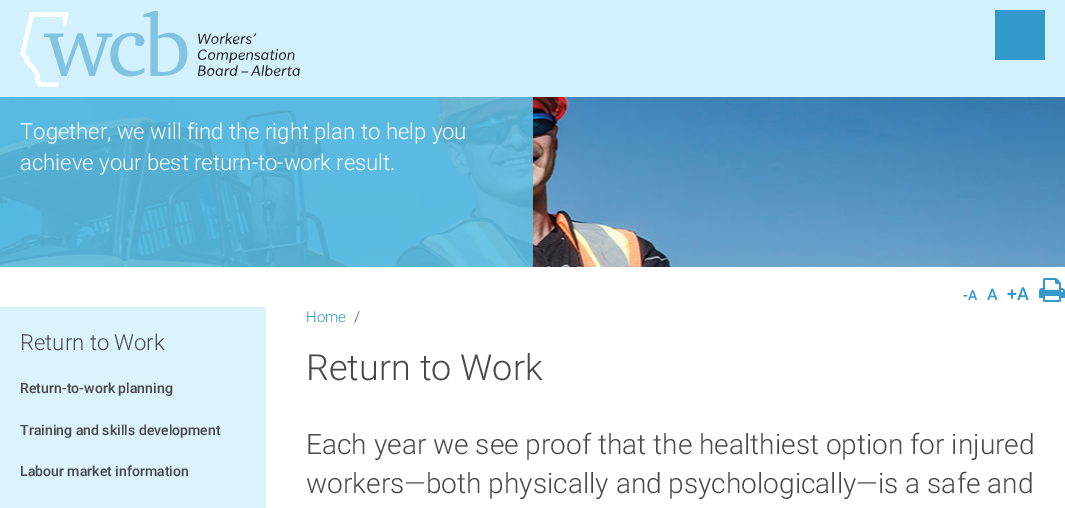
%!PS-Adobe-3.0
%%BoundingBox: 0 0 1065 508
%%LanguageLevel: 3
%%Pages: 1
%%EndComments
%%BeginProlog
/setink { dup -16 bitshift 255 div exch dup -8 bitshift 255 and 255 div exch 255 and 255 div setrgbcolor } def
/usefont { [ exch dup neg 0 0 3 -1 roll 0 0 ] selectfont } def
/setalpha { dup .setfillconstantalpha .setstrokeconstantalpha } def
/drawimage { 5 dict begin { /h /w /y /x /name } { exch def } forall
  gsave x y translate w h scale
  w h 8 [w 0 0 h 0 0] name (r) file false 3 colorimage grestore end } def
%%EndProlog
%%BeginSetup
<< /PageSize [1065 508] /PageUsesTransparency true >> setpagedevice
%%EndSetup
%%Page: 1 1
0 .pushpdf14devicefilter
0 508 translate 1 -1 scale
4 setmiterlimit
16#FFFFFF setink
0 0 1065 508 rectfill
16#D3F1FC setink
0 0 1065 97 rectfill
(img1.raw) 20 11 280 76 drawimage
16#3399CC setink
995 10 50 50 rectfill
(img2.raw) 0 97 1065 170 drawimage
0.9 setalpha
16#5BBEE4 setink
0 97 533 170 rectfill
/Roboto-Light 22.05 usefont
1 setalpha
16#FFFFFF setink
20 139 moveto (Together, we will find the right plan to help you) show
20 170 moveto (achieve your best return-to-work result.) show
/Roboto-Medium 14 usefont
16#3399CC setink
963 300 moveto (-A) show
/Roboto-Medium 16 usefont
987 300 moveto (A) show
/Roboto-Medium 18 usefont
1007 300 moveto (+A) show
(img3.raw) 1039 278 26 24 drawimage
16#DAF3FC setink
0 307 266 201 rectfill
/Roboto-Light 22.05 usefont
16#494949 setink
20 350 moveto (Return to Work) show
/Roboto-Medium 14.1 usefont
[
    [(Return-to-work planning) 20 393]
    [(Training and skills development) 20 435]
    [(Labour market information) 20 476]
] { aload pop moveto show } forall
/Roboto-Light 15 usefont
16#3399CC setink
306 322 moveto (Home) show
16#494949 setink
354 322 moveto (/) show
/Roboto-Light 36 usefont
306 380 moveto (Return to Work) show
/Roboto-Light 28.05 usefont
306 454 moveto (Each year we see proof that the healthiest option for injured) show
306 493 moveto (workers—both physically and psychologically—is a safe and) show
.poppdf14devicefilter showpage
%%EOF
